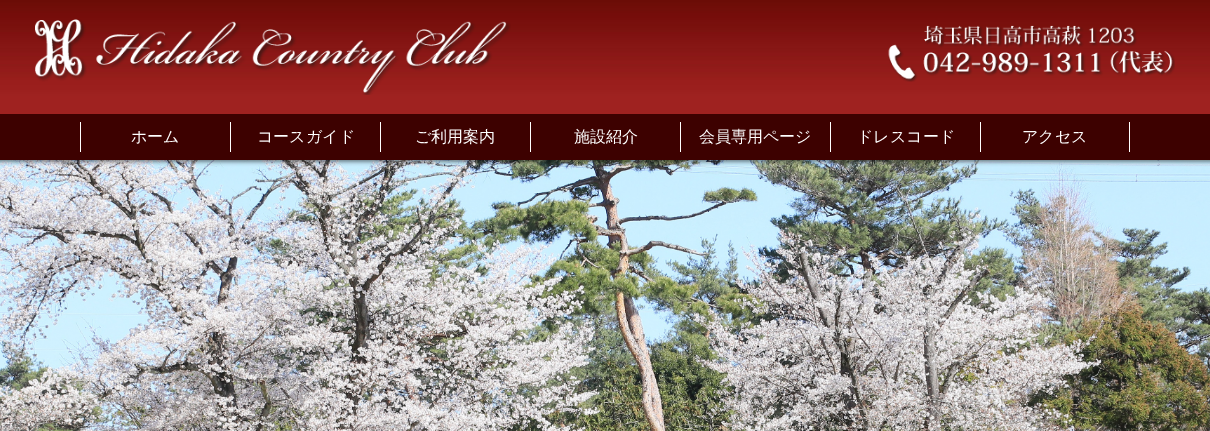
%!PS-Adobe-3.0
%%BoundingBox: 0 0 1210 431
%%LanguageLevel: 3
%%Pages: 1
%%EndComments
%%BeginProlog
/setink { dup -16 bitshift 255 div exch dup -8 bitshift 255 and 255 div exch 255 and 255 div setrgbcolor } def
/usefont { [ exch dup neg 0 0 3 -1 roll 0 0 ] selectfont } def
/setalpha { dup .setfillconstantalpha .setstrokeconstantalpha } def
/rrect { 5 dict begin { /r /h /w /y /x } { exch def } forall
  x r add y moveto x w add y 2 copy h add r arct x w add y h add x 1 index r arct
  x y h add x y r arct x y 2 copy exch w add exch r arct closepath end } def
/softshadow { 12 dict begin { /a /b /q /h /w /y /x } { exch def } forall gsave /was 0 def
  9 -2 -9 { dup b mul 4 div /e exch def 1 sub .425 mul 2.718 exch exp 1 add a .99 .min exch div /now exch def
    1 1 now sub 1 was sub div sub setalpha /was now def
    w h .min e 2 mul add 0 gt { x e sub y e sub w e 2 mul add h e 2 mul add
      q e add b .6 mul add w h .min 2 div e add .min 0 .max rrect fill } if } for grestore end } def
/drawimage { 5 dict begin { /h /w /y /x /name } { exch def } forall
  gsave x y translate w h scale
  w h 8 [w 0 0 h 0 0] name (r) file false 3 colorimage grestore end } def
%%EndProlog
%%BeginSetup
<< /PageSize [1210 431] /PageUsesTransparency true >> setpagedevice
%%EndSetup
%%Page: 1 1
0 .pushpdf14devicefilter
0 431 translate 1 -1 scale
4 setmiterlimit
16#FFFFFF setink
0 0 1210 431 rectfill
(img4.raw) 0 160 1210 271 drawimage
16#000000 setink
-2 -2 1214 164 0 2 0.45 softshadow
(img1.raw) 0 0 1210 114 drawimage
(img2.raw) 35 19 476 76 drawimage
(img3.raw) 888 25 287 57 drawimage
16#3D0100 setink
0 114 1210 46 rectfill
16#FFFFFF setink
80 122 1 30 rectfill
/WenQuanYiZenHei-Medium 16 usefont
131 142 moveto (ホーム) show
230 122 1 30 rectfill
257 142 moveto (コースガイド) show
380 122 1 30 rectfill
415 142 moveto (ご利用案内) show
530 122 1 30 rectfill
574 142 moveto (施設紹介) show
680 122 1 30 rectfill
699 142 moveto (会員専用ページ) show
830 122 1 30 rectfill
857 142 moveto (ドレスコード) show
1129 122 1 30 rectfill
980 122 1 30 rectfill
1022 142 moveto (アクセス) show
.poppdf14devicefilter showpage
%%EOF
